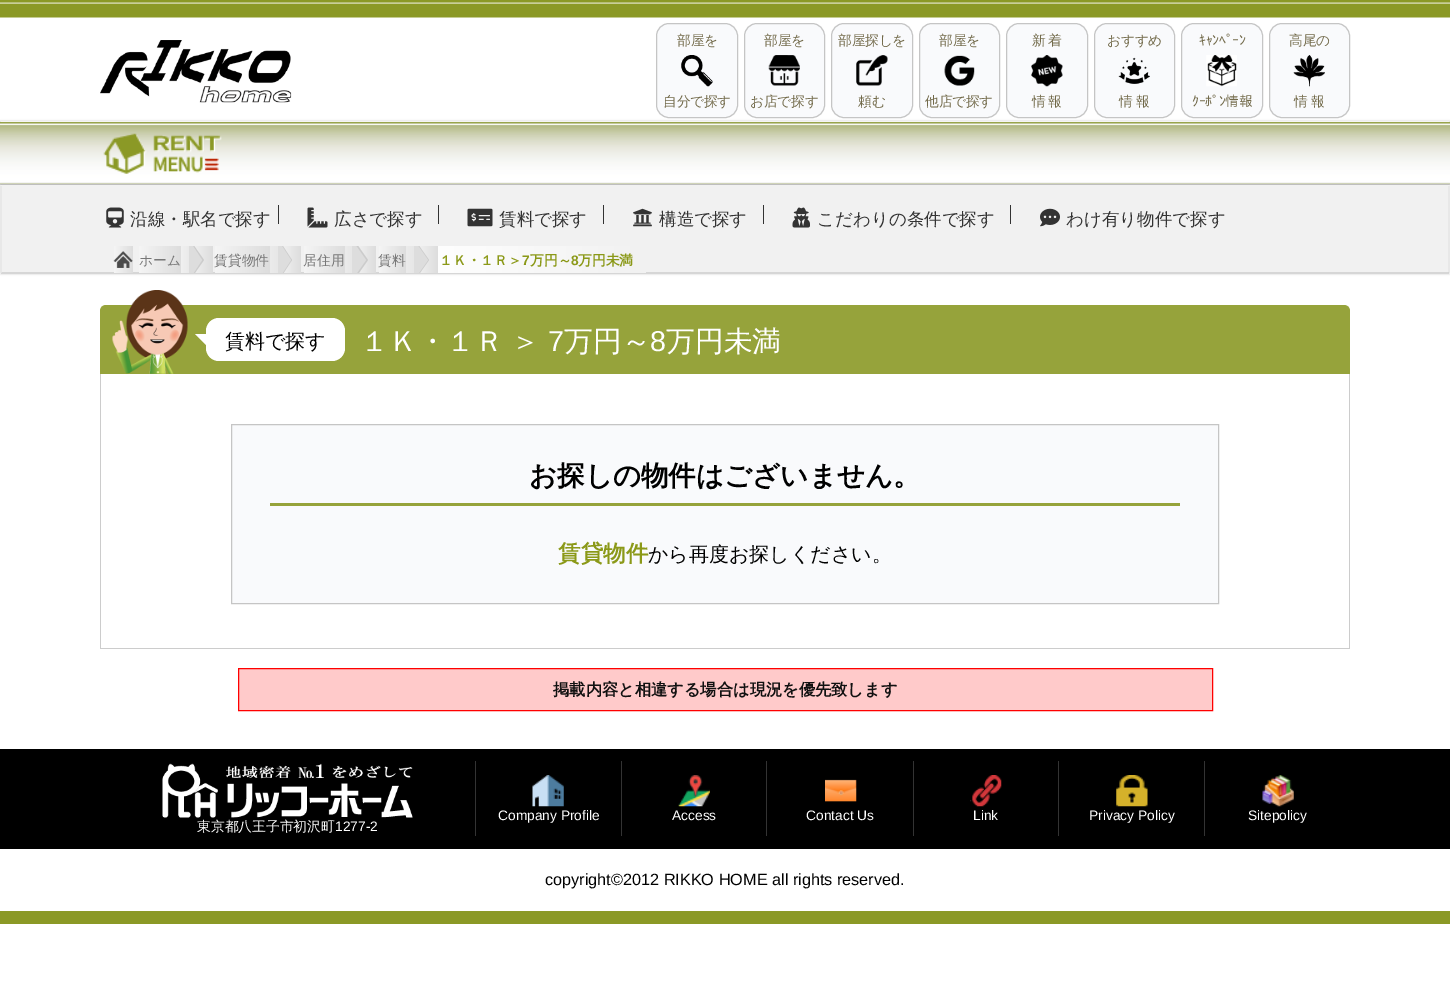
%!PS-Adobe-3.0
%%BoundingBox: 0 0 1450 983
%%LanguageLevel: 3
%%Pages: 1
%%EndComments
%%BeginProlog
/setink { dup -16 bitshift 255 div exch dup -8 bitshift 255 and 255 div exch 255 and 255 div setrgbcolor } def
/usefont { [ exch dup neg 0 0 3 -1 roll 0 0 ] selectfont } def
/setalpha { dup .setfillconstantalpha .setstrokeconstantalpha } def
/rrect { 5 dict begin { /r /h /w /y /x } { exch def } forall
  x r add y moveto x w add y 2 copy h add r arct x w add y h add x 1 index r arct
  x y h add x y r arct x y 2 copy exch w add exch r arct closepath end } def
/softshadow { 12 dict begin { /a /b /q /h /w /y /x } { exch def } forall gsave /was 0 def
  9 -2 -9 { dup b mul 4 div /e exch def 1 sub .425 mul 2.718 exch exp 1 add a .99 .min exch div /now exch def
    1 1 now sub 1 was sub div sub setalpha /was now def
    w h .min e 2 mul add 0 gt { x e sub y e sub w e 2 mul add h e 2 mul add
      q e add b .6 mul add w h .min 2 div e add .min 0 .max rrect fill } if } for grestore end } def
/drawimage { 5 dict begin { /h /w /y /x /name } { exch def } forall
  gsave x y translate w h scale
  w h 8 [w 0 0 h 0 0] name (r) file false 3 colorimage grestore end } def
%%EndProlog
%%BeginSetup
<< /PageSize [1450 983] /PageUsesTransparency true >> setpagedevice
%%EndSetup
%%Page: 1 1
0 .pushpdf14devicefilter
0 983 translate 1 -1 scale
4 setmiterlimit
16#FFFFFF setink
0 0 1450 983 rectfill
(img1.raw) 0 0 1450 18 drawimage
(img2.raw) 100 40 192 63 drawimage
16#F9FAFC setink
656.5 23.5 81 94 12.5 rrect gsave fill grestore
16#C5C5C5 setink
stroke
/WenQuanYiZenHei-Medium 13.75 usefont
16#726A4A setink
677 45 moveto -0.25 0 (部屋を) ashow
(img3.raw) 681 55 32 32 drawimage
663 106 moveto -0.25 0 (自分で探す) ashow
16#F9FAFC setink
744.5 23.5 80 94 12.5 rrect gsave fill grestore
16#C5C5C5 setink
stroke
16#726A4A setink
764 45 moveto -0.25 0 (部屋を) ashow
(img4.raw) 768 55 32 31 drawimage
750 106 moveto -0.25 0 (お店で探す) ashow
16#F9FAFC setink
831.5 23.5 81 94 12.5 rrect gsave fill grestore
16#C5C5C5 setink
stroke
16#726A4A setink
838 45 moveto -0.25 0 (部屋探しを) ashow
(img5.raw) 856 55 32 31 drawimage
858 106 moveto -0.25 0 (頼む) ashow
16#F9FAFC setink
919.5 23.5 80 94 12.5 rrect gsave fill grestore
16#C5C5C5 setink
stroke
16#726A4A setink
939 45 moveto -0.25 0 (部屋を) ashow
(img6.raw) 944 55 31 31 drawimage
925 106 moveto -0.25 0 (他店で探す) ashow
16#F9FAFC setink
1006.5 23.5 81 94 12.5 rrect gsave fill grestore
16#C5C5C5 setink
stroke
16#726A4A setink
1032 45 moveto -0.25 0 (新) ashow
1048 45 moveto -0.25 0 (着) ashow
(img7.raw) 1031 55 32 32 drawimage
1032 106 moveto -0.25 0 (情) ashow
1048 106 moveto -0.25 0 (報) ashow
16#F9FAFC setink
1094.5 23.5 80 94 12.5 rrect gsave fill grestore
16#C5C5C5 setink
stroke
16#726A4A setink
1107 45 moveto -0.25 0 (おすすめ) ashow
(img8.raw) 1118 57 32 27 drawimage
1119 106 moveto -0.25 0 (情) ashow
1136 106 moveto -0.25 0 (報) ashow
16#F9FAFC setink
1181.5 23.5 81 94 12.5 rrect gsave fill grestore
16#C5C5C5 setink
stroke
/IPAPGothic-Regular 13.75 usefont
16#726A4A setink
1199 45 moveto -0.25 0 (ｷｬﾝﾍﾟｰﾝ) ashow
(img9.raw) 1206 55 31 32 drawimage
1192 106 moveto -0.25 0 (ｸｰﾎﾟﾝ情報) ashow
16#F9FAFC setink
1269.5 23.5 80 94 12.5 rrect gsave fill grestore
16#C5C5C5 setink
stroke
/WenQuanYiZenHei-Medium 13.75 usefont
16#726A4A setink
1289 45 moveto -0.25 0 (高尾の) ashow
(img10.raw) 1293 55 32 32 drawimage
1294 106 moveto -0.25 0 (情) ashow
1311 106 moveto -0.25 0 (報) ashow
16#F1F1F1 setink
0 121 1450 153 rectfill
16#000000 setink
0 121 1450 64 1 1 0.2 softshadow
16#8B9926 setink
1 122 moveto 1450 122 lineto 1450 184 lineto 0 184 lineto 0 122 lineto closepath fill
(img11.raw) 0 122 1450 62 drawimage
16#F5F5F5 setink
1450 122 moveto 0 122 lineto 1 121 lineto 1449 121 lineto closepath fill
16#CCCCCC setink
1449 185 moveto 1450 184 lineto 0 184 lineto 1 185 lineto closepath fill
(img12.raw) 103 133 119 41 drawimage
16#000000 setink
0 185 1450 89 1 1 0.2 softshadow
16#F1F1F1 setink
0 185 1450 89 1 rrect fill
(img13.raw) 106 207 18 21 drawimage
/WenQuanYiZenHei-Medium 17.5 usefont
16#333333 setink
130 225 moveto (沿線・駅名で探す) show
278 205 1 19 rectfill
(img14.raw) 307 207 21 21 drawimage
334 225 moveto (広さで探す) show
438 205 1 19 rectfill
(img15.raw) 467 208 26 19 drawimage
499 225 moveto (賃料で探す) show
603 205 1 19 rectfill
(img16.raw) 633 208 19 19 drawimage
659 225 moveto (構造で探す) show
763 205 1 19 rectfill
(img17.raw) 792 207 18 21 drawimage
817 225 moveto (こだわりの条件で探す) show
1010 205 1 19 rectfill
(img18.raw) 1040 208 20 19 drawimage
1066 225 moveto (わけ有り物件で探す) show
16#E5E5E5 setink
1.2 setlinewidth
1449 186 moveto 1449 273 lineto stroke
16#CCCCCC setink
1449 273 moveto 1 273 lineto stroke
16#E5E5E5 setink
1 273 moveto 1 186 lineto stroke
gsave 181 246 moveto 189 246 lineto 189 273 lineto 181 273 lineto closepath clip newpath
<< /ShadingType 2 /ColorSpace /DeviceRGB /Coords [176 260 205 260] /Extend [true true] /Function << /FunctionType 2 /Domain [0 1] /C0 [0.961 0.961 0.961] /C1 [0.867 0.867 0.867] /N 1 >> >> shfill grestore
gsave 114 246 moveto 133 246 lineto 133 273 lineto 114 273 lineto closepath clip newpath
<< /ShadingType 2 /ColorSpace /DeviceRGB /Coords [114 259 133 259] /Extend [true true] /Function << /FunctionType 2 /Domain [0 1] /C0 [0.961 0.961 0.961] /C1 [0.867 0.867 0.867] /N 1 >> >> shfill grestore
gsave 139 246 moveto 181 246 lineto 181 273 lineto 139 273 lineto closepath clip newpath
<< /ShadingType 2 /ColorSpace /DeviceRGB /Coords [139 260 181 260] /Extend [true true] /Function << /FunctionType 2 /Domain [0 1] /C0 [0.961 0.961 0.961] /C1 [0.867 0.867 0.867] /N 1 >> >> shfill grestore
gsave 194 246 moveto 213 246 lineto 213 273 lineto 194 273 lineto closepath clip newpath
<< /ShadingType 2 /ColorSpace /DeviceRGB /Coords [189 260 213 260] /Extend [true true] /Function << /FunctionType 2 /Domain [0 1] /C0 [0.961 0.961 0.961] /C1 [0.867 0.867 0.867] /N 1 >> >> shfill grestore
gsave
100 246 1250 27 rectclip
16#CCCCCC setink
190 280 moveto 190 240 lineto 204 260 lineto closepath fill
16#DDDDDD setink
189 280 moveto 189 240 lineto 202 260 lineto closepath fill
grestore
(img19.raw) 113 251 20 17 drawimage
/WenQuanYiZenHei-Medium 13.75 usefont
16#777777 setink
139 265 moveto (ホーム) show
gsave 270 246 moveto 278 246 lineto 278 273 lineto 270 273 lineto closepath clip newpath
<< /ShadingType 2 /ColorSpace /DeviceRGB /Coords [254 260 294 260] /Extend [true true] /Function << /FunctionType 2 /Domain [0 1] /C0 [0.961 0.961 0.961] /C1 [0.867 0.867 0.867] /N 1 >> >> shfill grestore
gsave 215 246 moveto 270 246 lineto 270 273 lineto 215 273 lineto closepath clip newpath
<< /ShadingType 2 /ColorSpace /DeviceRGB /Coords [215 260 270 260] /Extend [true true] /Function << /FunctionType 2 /Domain [0 1] /C0 [0.961 0.961 0.961] /C1 [0.867 0.867 0.867] /N 1 >> >> shfill grestore
gsave 282 246 moveto 301 246 lineto 301 273 lineto 282 273 lineto closepath clip newpath
<< /ShadingType 2 /ColorSpace /DeviceRGB /Coords [278 260 301 260] /Extend [true true] /Function << /FunctionType 2 /Domain [0 1] /C0 [0.961 0.961 0.961] /C1 [0.867 0.867 0.867] /N 1 >> >> shfill grestore
gsave
100 246 1250 27 rectclip
16#CCCCCC setink
279 280 moveto 279 240 lineto 292 260 lineto closepath fill
16#DDDDDD setink
278 280 moveto 278 240 lineto 291 260 lineto closepath fill
grestore
214 265 moveto (賃貸物件) show
gsave 345 246 moveto 352 246 lineto 352 273 lineto 345 273 lineto closepath clip newpath
<< /ShadingType 2 /ColorSpace /DeviceRGB /Coords [329 260 369 260] /Extend [true true] /Function << /FunctionType 2 /Domain [0 1] /C0 [0.961 0.961 0.961] /C1 [0.867 0.867 0.867] /N 1 >> >> shfill grestore
gsave 304 246 moveto 345 246 lineto 345 273 lineto 304 273 lineto closepath clip newpath
<< /ShadingType 2 /ColorSpace /DeviceRGB /Coords [304 260 345 260] /Extend [true true] /Function << /FunctionType 2 /Domain [0 1] /C0 [0.961 0.961 0.961] /C1 [0.867 0.867 0.867] /N 1 >> >> shfill grestore
gsave 358 246 moveto 376 246 lineto 376 273 lineto 358 273 lineto closepath clip newpath
<< /ShadingType 2 /ColorSpace /DeviceRGB /Coords [353 260 376 260] /Extend [true true] /Function << /FunctionType 2 /Domain [0 1] /C0 [0.961 0.961 0.961] /C1 [0.867 0.867 0.867] /N 1 >> >> shfill grestore
gsave
100 246 1250 27 rectclip
16#CCCCCC setink
354 280 moveto 354 240 lineto 368 260 lineto closepath fill
16#DDDDDD setink
352 280 moveto 352 240 lineto 366 260 lineto closepath fill
grestore
303 265 moveto (居住用) show
gsave 406 246 moveto 414 246 lineto 414 273 lineto 406 273 lineto closepath clip newpath
<< /ShadingType 2 /ColorSpace /DeviceRGB /Coords [390 260 430 260] /Extend [true true] /Function << /FunctionType 2 /Domain [0 1] /C0 [0.961 0.961 0.961] /C1 [0.867 0.867 0.867] /N 1 >> >> shfill grestore
gsave 379 246 moveto 406 246 lineto 406 273 lineto 379 273 lineto closepath clip newpath
<< /ShadingType 2 /ColorSpace /DeviceRGB /Coords [379 260 406 260] /Extend [true true] /Function << /FunctionType 2 /Domain [0 1] /C0 [0.961 0.961 0.961] /C1 [0.867 0.867 0.867] /N 1 >> >> shfill grestore
gsave 419 246 moveto 438 246 lineto 438 273 lineto 419 273 lineto closepath clip newpath
<< /ShadingType 2 /ColorSpace /DeviceRGB /Coords [414 260 438 260] /Extend [true true] /Function << /FunctionType 2 /Domain [0 1] /C0 [0.961 0.961 0.961] /C1 [0.867 0.867 0.867] /N 1 >> >> shfill grestore
gsave
100 246 1250 27 rectclip
16#CCCCCC setink
415 280 moveto 415 240 lineto 429 260 lineto closepath fill
16#DDDDDD setink
414 280 moveto 414 240 lineto 428 260 lineto closepath fill
grestore
378 265 moveto (賃料) show
gsave 438 246 moveto 646 246 lineto 646 273 lineto 438 273 lineto closepath clip newpath
<< /ShadingType 2 /ColorSpace /DeviceRGB /Coords [415 259 646 259] /Extend [true true] /Function << /FunctionType 2 /Domain [0 1] /C0 [1 1 1] /C1 [0.945 0.945 0.945] /N 1 >> >> shfill grestore
/WenQuanYiZenHei-Bold 13.75 usefont
16#8B9918 setink
439 265 moveto (１Ｋ・１Ｒ＞) show
/LiberationSans-Bold 13.75 usefont
522 265 moveto (7) show
/WenQuanYiZenHei-Bold 13.75 usefont
530 265 moveto (万円～) show
/LiberationSans-Bold 13.75 usefont
571 265 moveto (8) show
/WenQuanYiZenHei-Bold 13.75 usefont
578 265 moveto (万円未満) show
16#CCCCCC setink
100 648 1250 1 rectfill
16#96A33B setink
106 305 moveto 1344 305 lineto 1347.5 305 1350 307.5 1350 311 curveto 1350 374 lineto 100 374 lineto 100 311 lineto 100 307.5 102.5 305 106 305 curveto closepath fill
(img20.raw) 112 290 76 84 drawimage
16#FFFFFF setink
206 318 139 43 13 rrect fill
220 334 moveto 220 359 lineto 195 334 lineto closepath fill
/WenQuanYiZenHei-Medium 20 usefont
16#000000 setink
225 348 moveto (賃料で探す) show
/WenQuanYiZenHei-Medium 28.75 usefont
16#FFFFFF setink
360 351 moveto (１Ｋ・１Ｒ) show
511 351 moveto (＞) show
/LiberationSans-Regular 28.75 usefont
548 351 moveto (7) show
/WenQuanYiZenHei-Medium 28.75 usefont
564 351 moveto (万円～) show
/LiberationSans-Regular 28.75 usefont
650 351 moveto (8) show
/WenQuanYiZenHei-Medium 28.75 usefont
666 351 moveto (万円未満) show
16#CCCCCC setink
1349 374 1 274 rectfill
100 374 1 274 rectfill
16#F9FAFC setink
231.5 424.5 moveto 1218.5 424.5 lineto 1218.5 603.5 lineto 231.5 603.5 lineto closepath gsave fill grestore
16#C5C5C5 setink
1 setlinewidth
stroke
16#96A33B setink
270 503 910 3 rectfill
/WenQuanYiZenHei-Bold 27.5 usefont
16#000000 setink
529 485 moveto (お探しの物件はございません。) show
/WenQuanYiZenHei-Bold 22.5 usefont
16#8B9918 setink
558 561 moveto (賃貸物件) show
/WenQuanYiZenHei-Medium 20 usefont
16#000000 setink
648 561 moveto (から再度お探しください。) show
16#FFCACA setink
238.5 668.5 moveto 1212.5 668.5 lineto 1212.5 710.5 lineto 238.5 710.5 lineto closepath gsave fill grestore
16#FF0000 setink
stroke
/WenQuanYiZenHei-Bold 16.25 usefont
16#111111 setink
553 695 moveto (掲載内容と相違する場合は現況を優先致します) show
16#000000 setink
0 749 1450 100 rectfill
16#333333 setink
621 761 1 75 rectfill
(img21.raw) 532 775 32 32 drawimage
/LiberationSans-Regular 13.75 usefont
16#FFFFFF setink
498 820 moveto (Company Profile) show
16#333333 setink
766 761 1 75 rectfill
(img22.raw) 678 775 32 32 drawimage
16#FFFFFF setink
672 820 moveto (Access) show
16#333333 setink
913 761 1 75 rectfill
(img23.raw) 825 779 32 23 drawimage
16#FFFFFF setink
806 820 moveto (Contact Us) show
16#333333 setink
1058 761 1 75 rectfill
(img24.raw) 970 775 32 32 drawimage
16#FFFFFF setink
973 820 moveto (Link) show
16#333333 setink
1204 761 1 75 rectfill
(img25.raw) 1116 775 32 32 drawimage
16#FFFFFF setink
1089 820 moveto (Privacy Policy) show
(img26.raw) 1262 775 32 32 drawimage
1248 820 moveto (Sitepolicy) show
16#333333 setink
475 761 1 75 rectfill
(img27.raw) 162 763 251 55 drawimage
/WenQuanYiZenHei-Medium 13.75 usefont
16#FFFFFF setink
197 831 moveto (東京都八王子市初沢町) show
/LiberationSans-Regular 13.75 usefont
335 831 moveto (1277-2) show
16#8B9926 setink
0 911 1450 13 rectfill
/LiberationSans-Regular 16.25 usefont
16#000000 setink
545 885 moveto (copyright©2012 RIKKO HOME all rights reserved.) show
.poppdf14devicefilter showpage
%%EOF
